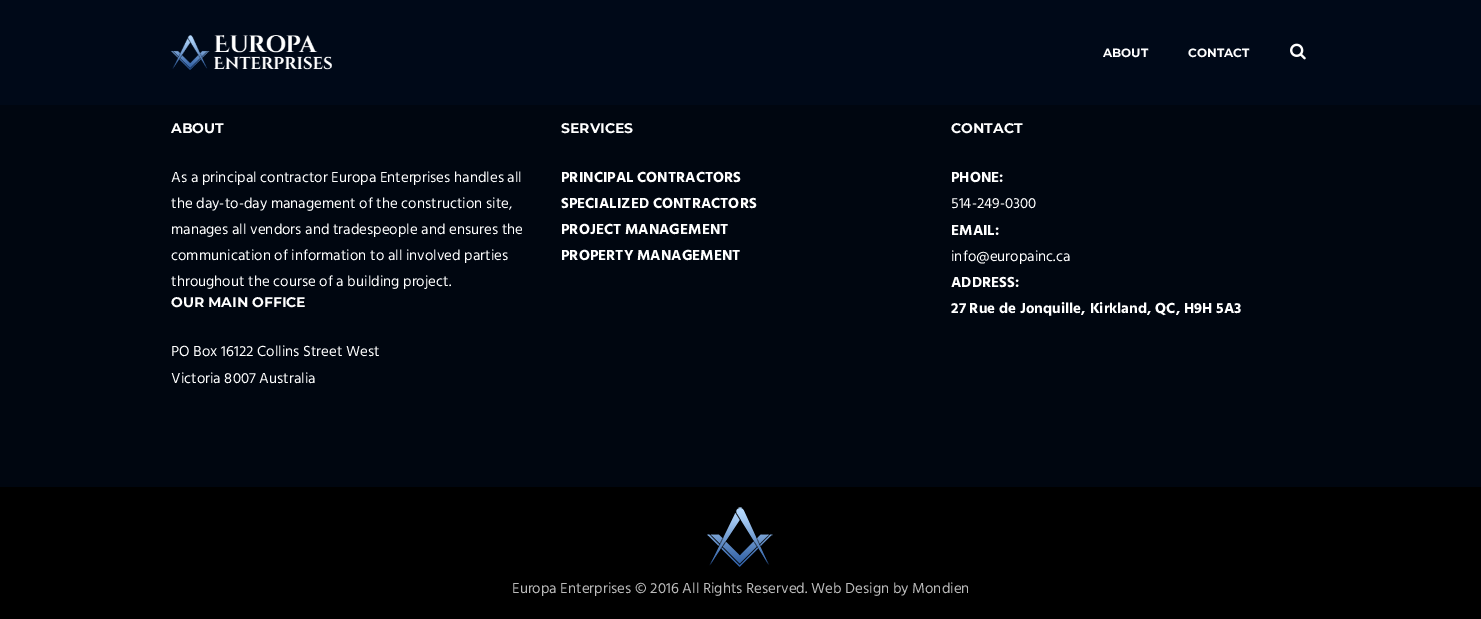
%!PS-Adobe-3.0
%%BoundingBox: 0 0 1481 619
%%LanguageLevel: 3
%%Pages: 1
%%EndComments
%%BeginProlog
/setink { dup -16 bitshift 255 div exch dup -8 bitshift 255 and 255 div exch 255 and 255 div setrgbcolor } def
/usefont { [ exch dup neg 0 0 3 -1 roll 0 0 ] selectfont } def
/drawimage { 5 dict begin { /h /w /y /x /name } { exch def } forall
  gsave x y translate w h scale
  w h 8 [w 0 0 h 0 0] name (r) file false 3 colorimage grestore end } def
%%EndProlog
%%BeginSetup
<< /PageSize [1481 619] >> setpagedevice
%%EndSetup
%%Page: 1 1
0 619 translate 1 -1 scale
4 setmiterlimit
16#000610 setink
0 0 1481 619 rectfill
16#000918 setink
0 0 1481 105 rectfill
(img1.raw) 170 35 162 35 drawimage
/Montserrat-Bold 12 usefont
16#FFFFFF setink
1103 57 moveto (ABOUT) show
1188 57 moveto (CONTACT) show
(img2.raw) 1290 43 16 17 drawimage
/Montserrat-Bold 14 usefont
171 133 moveto (ABOUT) show
/Hind-Regular 15 usefont
[
    [(As a principal contractor Europa Enterprises handles all) 171 182]
    [(the day-to-day management of the construction site,) 171 208]
    [(manages all vendors and tradespeople and ensures the) 171 234]
    [(communication of information to all involved parties) 171 260]
    [(throughout the course of a building project.) 171 286]
] { aload pop moveto show } forall
/Montserrat-Bold 14 usefont
171 307 moveto (OUR MAIN OFFICE) show
/Hind-Regular 15 usefont
171 356 moveto (PO Box 16122 Collins Street West) show
171 383 moveto (Victoria 8007 Australia) show
/Montserrat-Bold 14 usefont
561 133 moveto (SERVICES) show
/Hind-Bold 15 usefont
[
    [(PRINCIPAL CONTRACTORS) 561 182]
    [(SPECIALIZED CONTRACTORS) 561 208]
    [(PROJECT MANAGEMENT) 561 234]
    [(PROPERTY MANAGEMENT) 561 260]
] { aload pop moveto show } forall
/Montserrat-Bold 14 usefont
951 133 moveto (CONTACT) show
/Hind-Bold 15 usefont
951 182 moveto (PHONE:) show
/Hind-Regular 15 usefont
951 208 moveto (514-249-0300) show
/Hind-Bold 15 usefont
951 235 moveto (EMAIL:) show
/Hind-Regular 15 usefont
951 261 moveto (info@europainc.ca) show
/Hind-Bold 15 usefont
951 287 moveto (ADDRESS:) show
951 313 moveto (27 Rue de Jonquille, Kirkland, QC, H9H 5A3) show
16#000000 setink
0 487 1481 132 rectfill
(img3.raw) 707 507 66 60 drawimage
/Hind-Regular 15 usefont
16#BBBBBB setink
512 593 moveto (Europa Enterprises © 2016 All Rights Reserved. Web Design by Mondien) show
showpage
%%EOF
